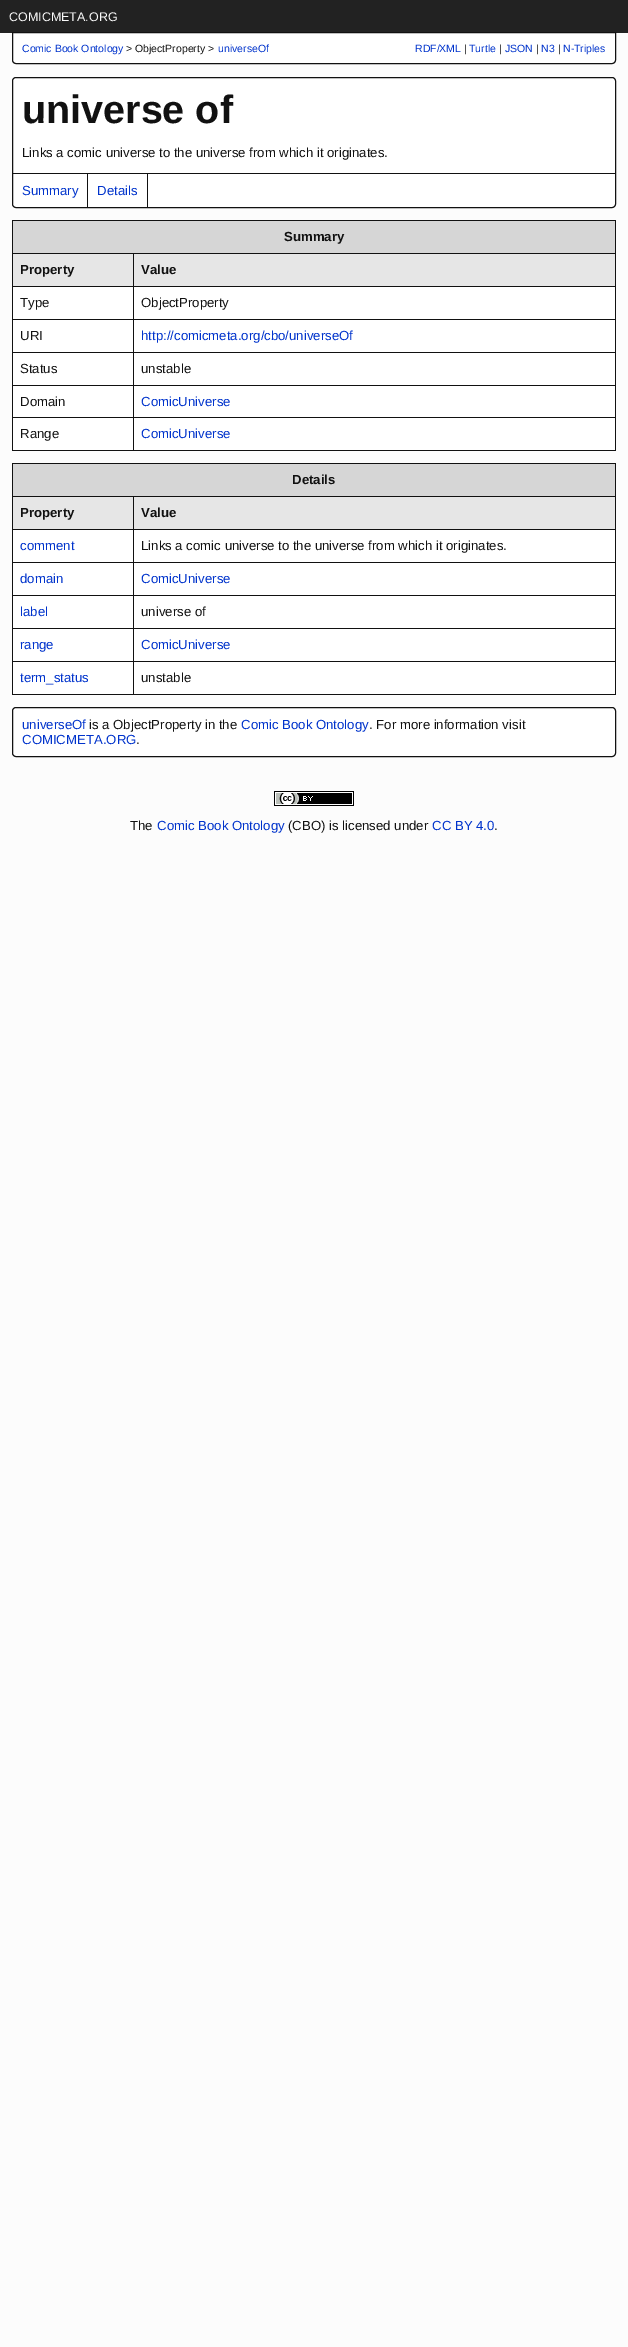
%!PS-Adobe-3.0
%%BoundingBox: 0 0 628 2347
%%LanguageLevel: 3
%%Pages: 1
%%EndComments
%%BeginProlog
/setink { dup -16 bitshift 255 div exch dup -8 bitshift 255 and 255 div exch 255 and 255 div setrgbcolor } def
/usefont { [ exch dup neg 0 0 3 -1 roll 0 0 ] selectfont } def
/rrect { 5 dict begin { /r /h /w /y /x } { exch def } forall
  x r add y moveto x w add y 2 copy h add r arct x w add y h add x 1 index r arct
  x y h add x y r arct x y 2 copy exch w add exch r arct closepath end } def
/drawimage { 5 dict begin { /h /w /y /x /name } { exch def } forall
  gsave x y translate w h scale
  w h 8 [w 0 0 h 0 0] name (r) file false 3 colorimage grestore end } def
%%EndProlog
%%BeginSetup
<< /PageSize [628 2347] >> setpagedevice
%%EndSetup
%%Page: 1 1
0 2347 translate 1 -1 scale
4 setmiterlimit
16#FCFCFC setink
0 0 628 2347 rectfill
16#222222 setink
0 0 628 33 rectfill
/LiberationSans-Regular 12.5 usefont
16#FAFAFA setink
9 21 moveto (COMICMETA.ORG) show
16#FFFFFF setink
12.5 32.5 moveto 615.5 32.5 lineto 615.5 60 lineto 615.5 62 614 63.5 612 63.5 curveto 16 63.5 lineto 14 63.5 12.5 62 12.5 60 curveto closepath gsave fill grestore
16#111111 setink
stroke
/LiberationSans-Regular 10.5 usefont
16#0033CC setink
22 52 moveto (Comic Book Ontology) show
16#111111 setink
126 52 moveto (> ObjectProperty >) show
16#0033CC setink
218 52 moveto (universeOf) show
415 52 moveto (RDF/XML) show
16#111111 setink
464 52 moveto (|) show
16#0033CC setink
469 52 moveto (Turtle) show
16#111111 setink
499 52 moveto (|) show
16#0033CC setink
505 52 moveto (JSON) show
16#111111 setink
536 52 moveto (|) show
16#0033CC setink
541 52 moveto (N3) show
16#111111 setink
558 52 moveto (|) show
16#0033CC setink
563 52 moveto (N-Triples) show
16#FFFFFF setink
12.5 77.5 603 130 3.5 rrect gsave fill grestore
16#111111 setink
stroke
/LiberationSans-Bold 39.5 usefont
22 123 moveto (universe of) show
/LiberationSans-Regular 13.2 usefont
22 157 moveto (Links a comic universe to the universe from which it originates.) show
13 173 602 1 rectfill
87 174 1 33 rectfill
16#0033CC setink
22 195 moveto (Summary) show
16#111111 setink
147 174 1 33 rectfill
16#0033CC setink
97 195 moveto (Details) show
[
    [13 287 602 163 16#FFFFFF]
    [13 221 602 32 16#D6D6D6]
    [12 220 604 1 16#111111]
    [615 220 1 33 16#111111]
    [12 220 1 33 16#111111]
] { aload pop setink rectfill } forall
/LiberationSans-Bold 13.2 usefont
284 241 moveto (Summary) show
[
    [12 253 604 1 16#111111]
    [615 253 1 34 16#111111]
    [12 253 1 34 16#111111]
    [13 254 120 32 16#E6E6E6]
] { aload pop setink rectfill } forall
16#111111 setink
20 274 moveto (Property) show
[
    [134 254 481 32 16#E6E6E6]
    [133 286 483 1 16#111111]
    [133 319 483 1 16#111111]
    [133 352 483 1 16#111111]
    [133 385 483 1 16#111111]
    [133 417 483 1 16#111111]
    [615 417 1 34 16#111111]
    [133 450 483 1 16#111111]
    [133 417 1 34 16#111111]
    [12 417 122 1 16#111111]
    [133 385 1 33 16#111111]
    [12 385 122 1 16#111111]
    [133 352 1 34 16#111111]
    [12 352 122 1 16#111111]
    [133 319 1 34 16#111111]
    [12 319 122 1 16#111111]
    [133 286 1 34 16#111111]
    [12 286 122 1 16#111111]
    [133 253 1 34 16#111111]
] { aload pop setink rectfill } forall
141 274 moveto (Value) show
[
    [12 450 122 1 16#111111]
    [12 417 1 34 16#111111]
    [12 385 1 33 16#111111]
    [12 352 1 34 16#111111]
    [12 319 1 34 16#111111]
    [12 286 1 34 16#111111]
] { aload pop setink rectfill } forall
/LiberationSans-Regular 13.2 usefont
20 307 moveto (Type) show
[
    [615 385 1 33 16#111111]
    [615 352 1 34 16#111111]
    [615 319 1 34 16#111111]
    [615 286 1 34 16#111111]
] { aload pop setink rectfill } forall
141 307 moveto (ObjectProperty) show
20 340 moveto (URI) show
16#0033CC setink
141 340 moveto (http://comicmeta.org/cbo/universeOf) show
16#111111 setink
[
    [(Status) 20 373]
    [(unstable) 141 373]
    [(Domain) 20 406]
] { aload pop moveto show } forall
16#0033CC setink
141 406 moveto (ComicUniverse) show
16#111111 setink
20 438 moveto (Range) show
16#0033CC setink
141 438 moveto (ComicUniverse) show
16#FFFFFF setink
12 463 604 232 4 rrect fill
[
    [13 464 602 32 16#D6D6D6]
    [12 463 604 1 16#111111]
    [615 463 1 33 16#111111]
    [12 463 1 33 16#111111]
] { aload pop setink rectfill } forall
/LiberationSans-Bold 13.2 usefont
292 484 moveto (Details) show
[
    [12 496 604 1 16#111111]
    [615 496 1 34 16#111111]
    [12 496 1 34 16#111111]
    [13 497 120 32 16#E6E6E6]
] { aload pop setink rectfill } forall
16#111111 setink
20 517 moveto (Property) show
[
    [134 497 481 32 16#E6E6E6]
    [133 529 483 1 16#111111]
    [133 562 483 1 16#111111]
    [133 595 483 1 16#111111]
    [133 628 483 1 16#111111]
    [133 661 483 1 16#111111]
    [615 661 1 34 16#111111]
    [133 694 483 1 16#111111]
    [133 661 1 34 16#111111]
    [12 661 122 1 16#111111]
    [133 628 1 34 16#111111]
    [12 628 122 1 16#111111]
    [133 595 1 34 16#111111]
    [12 595 122 1 16#111111]
    [133 562 1 34 16#111111]
    [12 562 122 1 16#111111]
    [133 529 1 34 16#111111]
    [12 529 122 1 16#111111]
    [133 496 1 34 16#111111]
] { aload pop setink rectfill } forall
141 517 moveto (Value) show
[
    [12 694 122 1 16#111111]
    [12 661 1 34 16#111111]
    [12 628 1 34 16#111111]
    [12 595 1 34 16#111111]
    [12 562 1 34 16#111111]
    [12 529 1 34 16#111111]
] { aload pop setink rectfill } forall
/LiberationSans-Regular 13.2 usefont
16#0033CC setink
20 550 moveto (comment) show
[
    [615 628 1 34 16#111111]
    [615 595 1 34 16#111111]
    [615 562 1 34 16#111111]
    [615 529 1 34 16#111111]
] { aload pop setink rectfill } forall
141 550 moveto (Links a comic universe to the universe from which it originates.) show
16#0033CC setink
[
    [(domain) 20 583]
    [(ComicUniverse) 141 583]
    [(label) 20 616]
] { aload pop moveto show } forall
16#111111 setink
141 616 moveto (universe of) show
16#0033CC setink
[
    [(range) 20 649]
    [(ComicUniverse) 141 649]
    [(term_status) 20 682]
] { aload pop moveto show } forall
16#111111 setink
141 682 moveto (unstable) show
16#FFFFFF setink
12.5 707.5 603 49 3.5 rrect gsave fill grestore
16#111111 setink
stroke
16#0033CC setink
22 729 moveto (universeOf) show
16#111111 setink
89 729 moveto (is a ObjectProperty in the) show
16#0033CC setink
241 729 moveto (Comic Book Ontology) show
16#111111 setink
369 729 moveto (. For more information visit) show
16#0033CC setink
22 744 moveto (COMICMETA.ORG) show
16#111111 setink
136 744 moveto (.) show
(img1.raw) 274 791 80 15 drawimage
130 830 moveto (The) show
16#0033CC setink
157 830 moveto (Comic Book Ontology) show
16#111111 setink
288 830 moveto (\(CBO\) is licensed under) show
16#0033CC setink
432 830 moveto (CC BY 4.0) show
16#111111 setink
494 830 moveto (.) show
showpage
%%EOF
